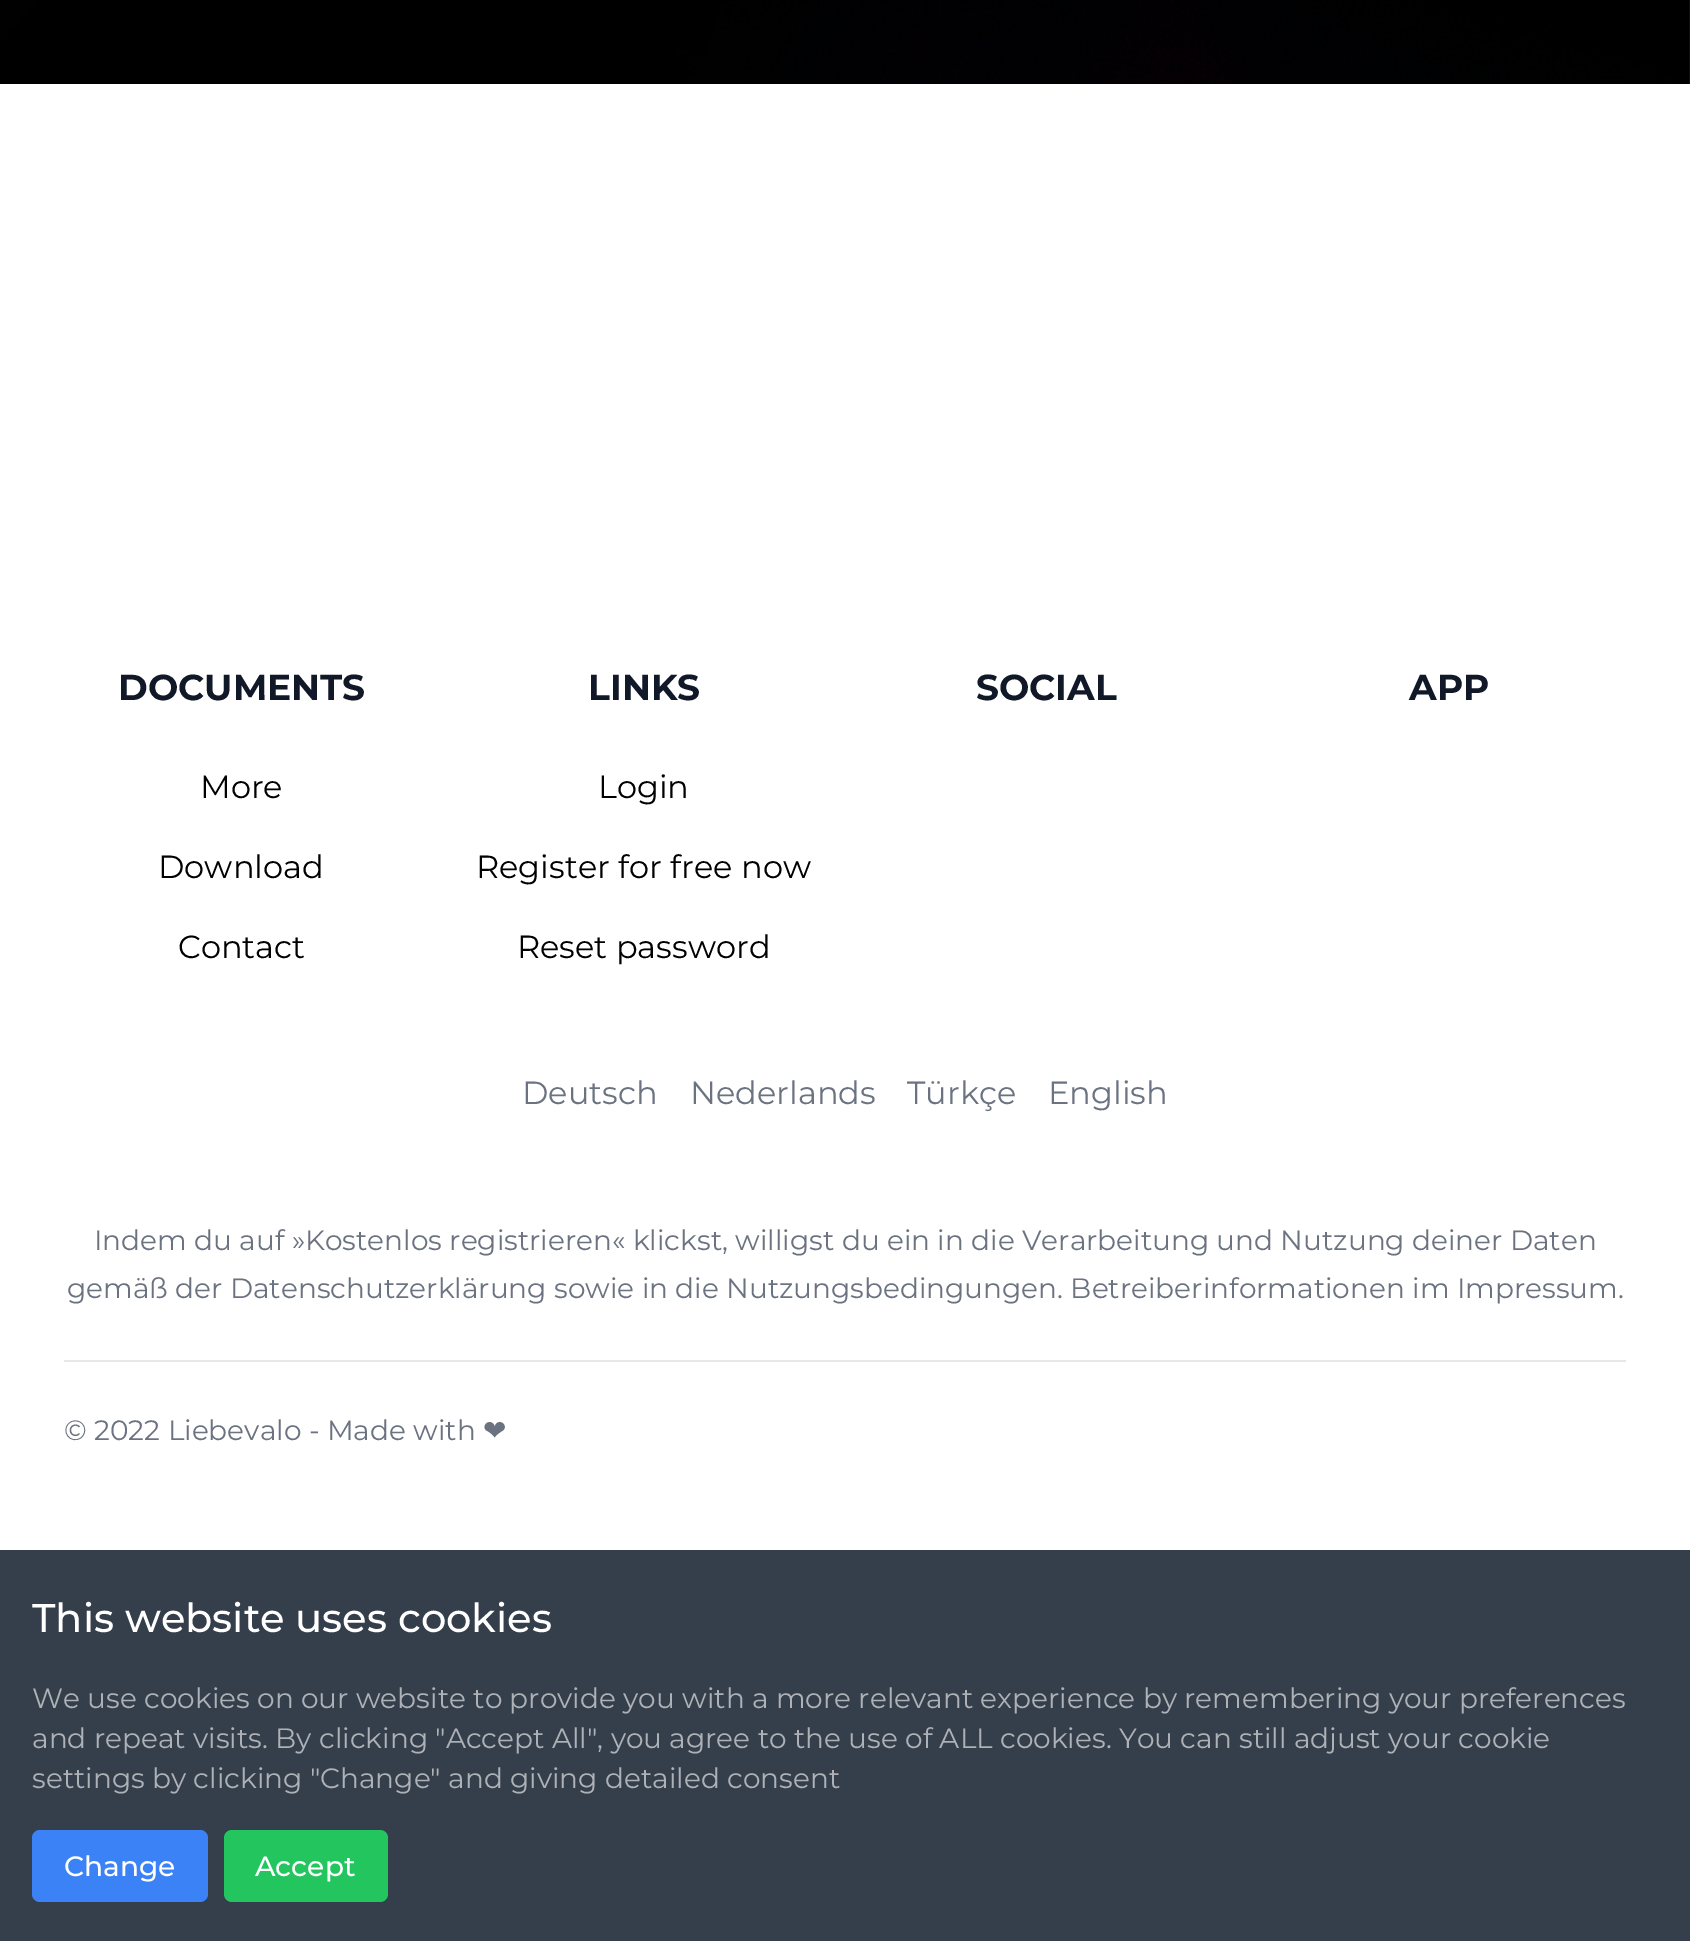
%!PS-Adobe-3.0
%%BoundingBox: 0 0 1690 1941
%%LanguageLevel: 3
%%Pages: 1
%%EndComments
%%BeginProlog
/setink { dup -16 bitshift 255 div exch dup -8 bitshift 255 and 255 div exch 255 and 255 div setrgbcolor } def
/usefont { [ exch dup neg 0 0 3 -1 roll 0 0 ] selectfont } def
/rrect { 5 dict begin { /r /h /w /y /x } { exch def } forall
  x r add y moveto x w add y 2 copy h add r arct x w add y h add x 1 index r arct
  x y h add x y r arct x y 2 copy exch w add exch r arct closepath end } def
/drawimage { 5 dict begin { /h /w /y /x /name } { exch def } forall
  gsave x y translate w h scale
  w h 8 [w 0 0 h 0 0] name (r) file false 3 colorimage grestore end } def
%%EndProlog
%%BeginSetup
<< /PageSize [1690 1941] >> setpagedevice
%%EndSetup
%%Page: 1 1
0 1941 translate 1 -1 scale
4 setmiterlimit
16#FFFFFF setink
0 0 1690 1941 rectfill
(img1.raw) 0 0 1690 84 drawimage
/Montserrat-Bold 36 usefont
16#111827 setink
118 700 moveto (DOCUMENTS) show
/Montserrat-Regular 32 usefont
16#000000 setink
[
    [(More) 200 798]
    [(Download) 158 878]
    [(Contact) 178 958]
] { aload pop moveto show } forall
/Montserrat-Bold 36 usefont
16#111827 setink
588 700 moveto (LINKS) show
/Montserrat-Regular 32 usefont
16#000000 setink
[
    [(Login) 598 798]
    [(Register for free now) 476 878]
    [(Reset password) 517 958]
] { aload pop moveto show } forall
/Montserrat-Bold 36 usefont
16#111827 setink
976 700 moveto (SOCIAL) show
1409 700 moveto (APP) show
/Montserrat-Regular 32 usefont
16#6B7280 setink
[
    [(Deutsch) 522 1104]
    [(Nederlands) 690 1104]
    [(Türkçe) 907 1104]
    [(English) 1048 1104]
] { aload pop moveto show } forall
/Montserrat-Regular 28 usefont
94 1250 moveto (Indem du auf »Kostenlos registrieren« klickst, willigst du ein in die Verarbeitung und Nutzung deiner Daten) show
67 1298 moveto (gemäß der Datenschutzerklärung sowie in die Nutzungsbedingungen. Betreiberinformationen im Impressum.) show
16#E5E7EB setink
64 1360 1562 2 rectfill
16#6B7280 setink
64 1440 moveto (© 2022 Liebevalo - Made with) show
/DejaVuSans-Regular 28 usefont
483 1440 moveto (❤) show
16#353E4B setink
0 1550 1690 391 rectfill
/Montserrat-Medium 40 usefont
16#FFFFFF setink
32 1632 moveto (This website uses cookies) show
/Montserrat-Regular 28 usefont
16#AEB2B7 setink
[
    [(We use cookies on our website to provide you with a more relevant experience by remembering your preferences) 32 1708]
    [(and repeat visits. By clicking "Accept All", you agree to the use of ALL cookies. You can still adjust your cookie) 32 1748]
    [(settings by clicking "Change" and giving detailed consent) 32 1788]
] { aload pop moveto show } forall
16#3B82F6 setink
32 1830 176 72 8 rrect fill
/Montserrat-Medium 28 usefont
16#FFFFFF setink
64 1876 moveto (Change) show
16#22C55E setink
224 1830 164 72 8 rrect fill
16#FFFFFF setink
255 1876 moveto (Accept) show
showpage
%%EOF
